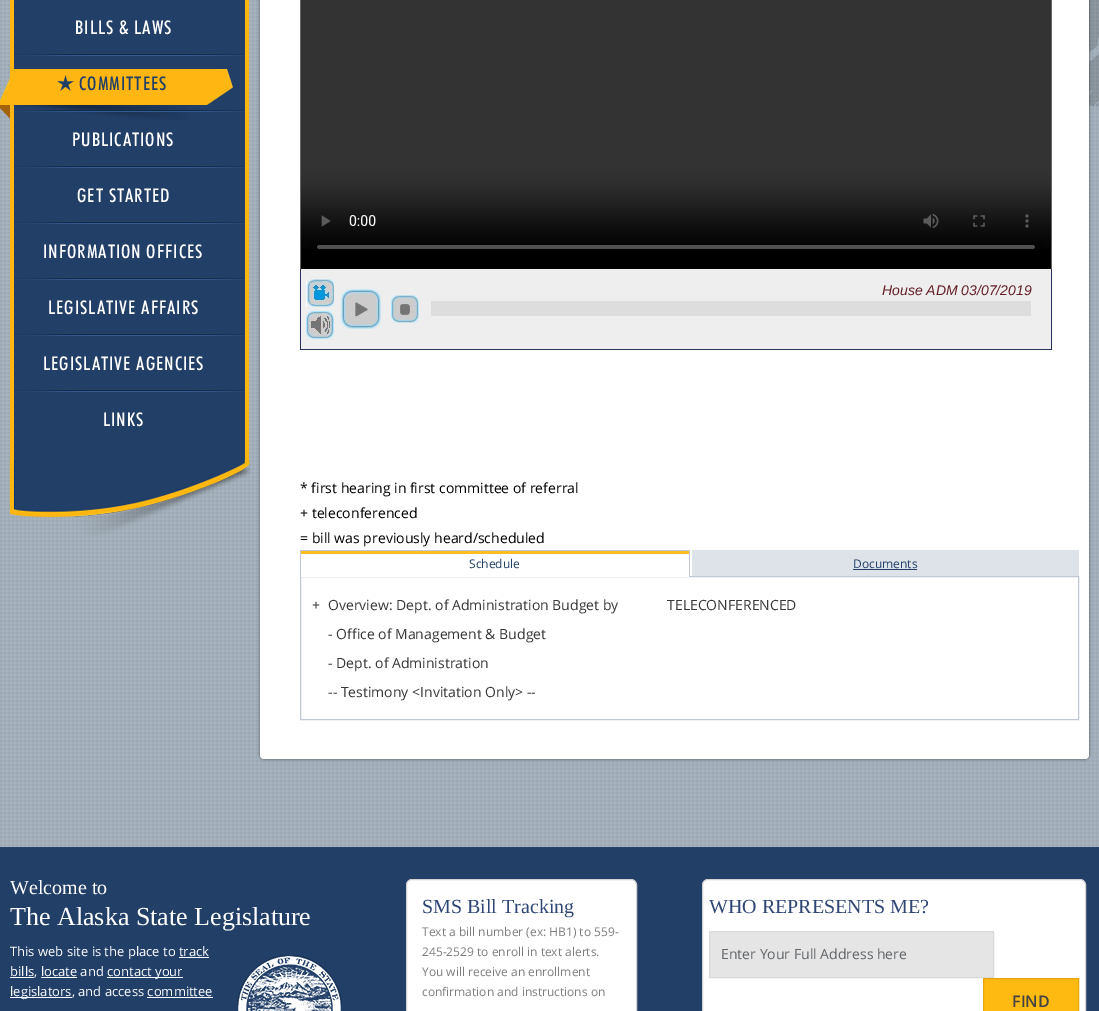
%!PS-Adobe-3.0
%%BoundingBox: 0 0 1099 1011
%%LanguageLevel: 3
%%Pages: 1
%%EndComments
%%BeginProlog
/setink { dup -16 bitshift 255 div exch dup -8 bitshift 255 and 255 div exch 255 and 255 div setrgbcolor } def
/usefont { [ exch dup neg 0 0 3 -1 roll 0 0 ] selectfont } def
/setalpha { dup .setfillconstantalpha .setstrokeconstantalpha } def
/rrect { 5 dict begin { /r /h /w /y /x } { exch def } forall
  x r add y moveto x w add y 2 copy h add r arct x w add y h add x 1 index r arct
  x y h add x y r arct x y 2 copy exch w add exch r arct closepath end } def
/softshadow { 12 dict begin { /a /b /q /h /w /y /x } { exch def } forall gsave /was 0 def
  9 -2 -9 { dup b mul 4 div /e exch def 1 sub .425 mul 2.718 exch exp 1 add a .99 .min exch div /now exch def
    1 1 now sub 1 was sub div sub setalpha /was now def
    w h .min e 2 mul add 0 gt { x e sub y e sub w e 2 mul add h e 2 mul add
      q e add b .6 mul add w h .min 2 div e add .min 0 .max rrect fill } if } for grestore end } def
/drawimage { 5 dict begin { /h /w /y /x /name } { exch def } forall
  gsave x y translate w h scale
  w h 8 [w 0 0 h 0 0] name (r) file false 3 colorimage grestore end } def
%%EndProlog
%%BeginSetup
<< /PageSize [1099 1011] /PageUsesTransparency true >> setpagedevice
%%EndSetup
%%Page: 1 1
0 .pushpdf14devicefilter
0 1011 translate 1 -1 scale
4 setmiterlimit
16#FFFFFF setink
0 0 1099 1011 rectfill
(img1.raw) 0 0 1099 847 drawimage
[
    [14 0 231 461 16#223F68]
    [245 0 4 461 16#FFB612]
    [10 0 4 461 16#FFB612]
] { aload pop setink rectfill } forall
/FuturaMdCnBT-Medium 19 usefont
16#FFFFFF setink
75 34 moveto 1 0 (BILLS & LAWS) ashow
(img2.raw) 15 54 230 2 drawimage
16#FFB612 setink
14 69 193 36 rectfill
(img3.raw) 0 78 10 41 drawimage
(img4.raw) 57 75 17 16 drawimage
16#223F68 setink
79 90 moveto 1 0 (COMMITTEES) ashow
(img5.raw) 207 69 26 36 drawimage
(img6.raw) 11 105 178 16 drawimage
(img7.raw) 15 110 230 2 drawimage
16#FFFFFF setink
72 146 moveto 1 0 (PUBLICATIONS) ashow
(img2.raw) 15 166 230 2 drawimage
77 202 moveto 1 0 (GET STARTED) ashow
(img2.raw) 15 222 230 2 drawimage
43 258 moveto 1 0 (INFORMATION OFFICES) ashow
(img2.raw) 15 278 230 2 drawimage
48 314 moveto 1 0 (LEGISLATIVE AFFAIRS) ashow
(img2.raw) 15 334 230 2 drawimage
43 370 moveto 1 0 (LEGISLATIVE AGENCIES) ashow
(img2.raw) 15 390 230 2 drawimage
103 426 moveto 1 0 (LINKS) ashow
(img8.raw) 9 460 242 76 drawimage
(img14.raw) 1089 0 10 107 drawimage
16#000000 setink
260 -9 829 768 4 1.5 0.5 softshadow
16#FFFFFF setink
260 -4 829 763 4 rrect fill
[
    [301 249 750 20 16#000000]
    [1051 0 1 269 16#666666]
    [300 0 1 269 16#666666]
] { aload pop setink rectfill } forall
(img9.raw) 301 0 750 249 drawimage
[
    [301 269 750 80 16#EEEEEE]
    [1051 269 1 81 16#263359]
    [300 349 752 1 16#263359]
    [300 269 1 81 16#263359]
] { aload pop setink rectfill } forall
(img10.raw) 306 279 28 28 drawimage
(img11.raw) 341 289 40 40 drawimage
(img12.raw) 391 295 28 28 drawimage
(img13.raw) 306 311 28 28 drawimage
/LiberationSans-Italic 14 usefont
16#631E25 setink
882 295 moveto (House ADM 03/07/2019) show
16#DDDDDD setink
431 301 600 15 rectfill
/OpenSans-Regular 14 usefont
16#000000 setink
[
    [(* first hearing in first committee of referral) 300 493]
    [(+ teleconferenced) 300 518]
    [(= bill was previously heard/scheduled) 300 543]
] { aload pop moveto show } forall
16#C0C7D6 setink
300.5 576.5 778 143 rectstroke
[
    [301 576 388 1 16#FFFFFF]
    [301 551 388 3 16#FEBE21]
    [300 550 390 1 16#C0C7D6]
    [689 550 1 27 16#C0C7D6]
    [300 550 1 27 16#C0C7D6]
] { aload pop setink rectfill } forall
/OpenSans-Regular 12 usefont
16#223F68 setink
469 568 moveto (Schedule) show
[
    [693 551 385 25 16#DEE3E9]
    [692 550 387 1 16#DEE3E9]
    [1078 550 1 26 16#DEE3E9]
    [692 550 1 26 16#DEE3E9]
] { aload pop setink rectfill } forall
16#223F68 setink
853 568 moveto (Documents) show
853 569 64 1 rectfill
/OpenSans-Regular 14 usefont
16#373737 setink
[
    [(+) 312 610]
    [(Overview: Dept. of Administration Budget by) 328 610]
    [(TELECONFERENCED) 667 610]
    [(- Office of Management & Budget) 328 639]
    [(- Dept. of Administration) 328 668]
    [(-- Testimony <Invitation Only> --) 328 697]
] { aload pop moveto show } forall
16#223F68 setink
0 847 1099 164 rectfill
/LiberationSerif-Regular 20 usefont
16#FFFFFF setink
10 894 moveto (Welcome to) show
/LiberationSerif-Regular 26 usefont
10 925 moveto (The Alaska State Legislature) show
/OpenSans-Regular 13 usefont
10 956 moveto (This web site is the place to track) show
10 977 24 1 rectfill
10 976 moveto (bills, locate and contact) show
179 957 30 1 rectfill
107 977 76 1 rectfill
155 976 moveto (your) show
41 977 36 1 rectfill
10 997 62 1 rectfill
10 996 moveto (legislators, and access committee) show
147 997 66 1 rectfill
(img15.raw) 237 955 105 56 drawimage
406.5 879.5 230 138 5.5 rrect gsave fill grestore
16#D2D2D2 setink
stroke
/LiberationSerif-Regular 20 usefont
16#2E4676 setink
422 913 moveto (SMS Bill Tracking) show
/OpenSans-Regular 12 usefont
16#7E7E7E setink
[
    [(Text a bill number \(ex: HB1\) to 559-) 422 936]
    [(245-2529 to enroll in text alerts.) 422 956]
    [(You will receive an enrollment) 422 976]
    [(confirmation and instructions on) 422 996]
] { aload pop moveto show } forall
16#FFFFFF setink
702.5 879.5 383 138 5.5 rrect gsave fill grestore
16#D2D2D2 setink
stroke
/LiberationSerif-Regular 20 usefont
16#2E4676 setink
709 913 moveto (WHO REPRESENTS ME?) show
16#E5E5E5 setink
709.5 931.5 284 46 0.5 rrect gsave fill grestore
16#D9D9D9 setink
stroke
/OpenSans-Regular 14 usefont
16#61666A setink
721 959 moveto (Enter Your Full Address here) show
16#FFBA11 setink
983.5 978.5 moveto 1078.5 978.5 lineto 1078.5 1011.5 lineto 983.5 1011.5 lineto closepath gsave fill grestore
16#E8A50F setink
stroke
/OpenSans-SemiBold 16 usefont
16#434343 setink
1012 1007 moveto (FIND) show
.poppdf14devicefilter showpage
%%EOF
